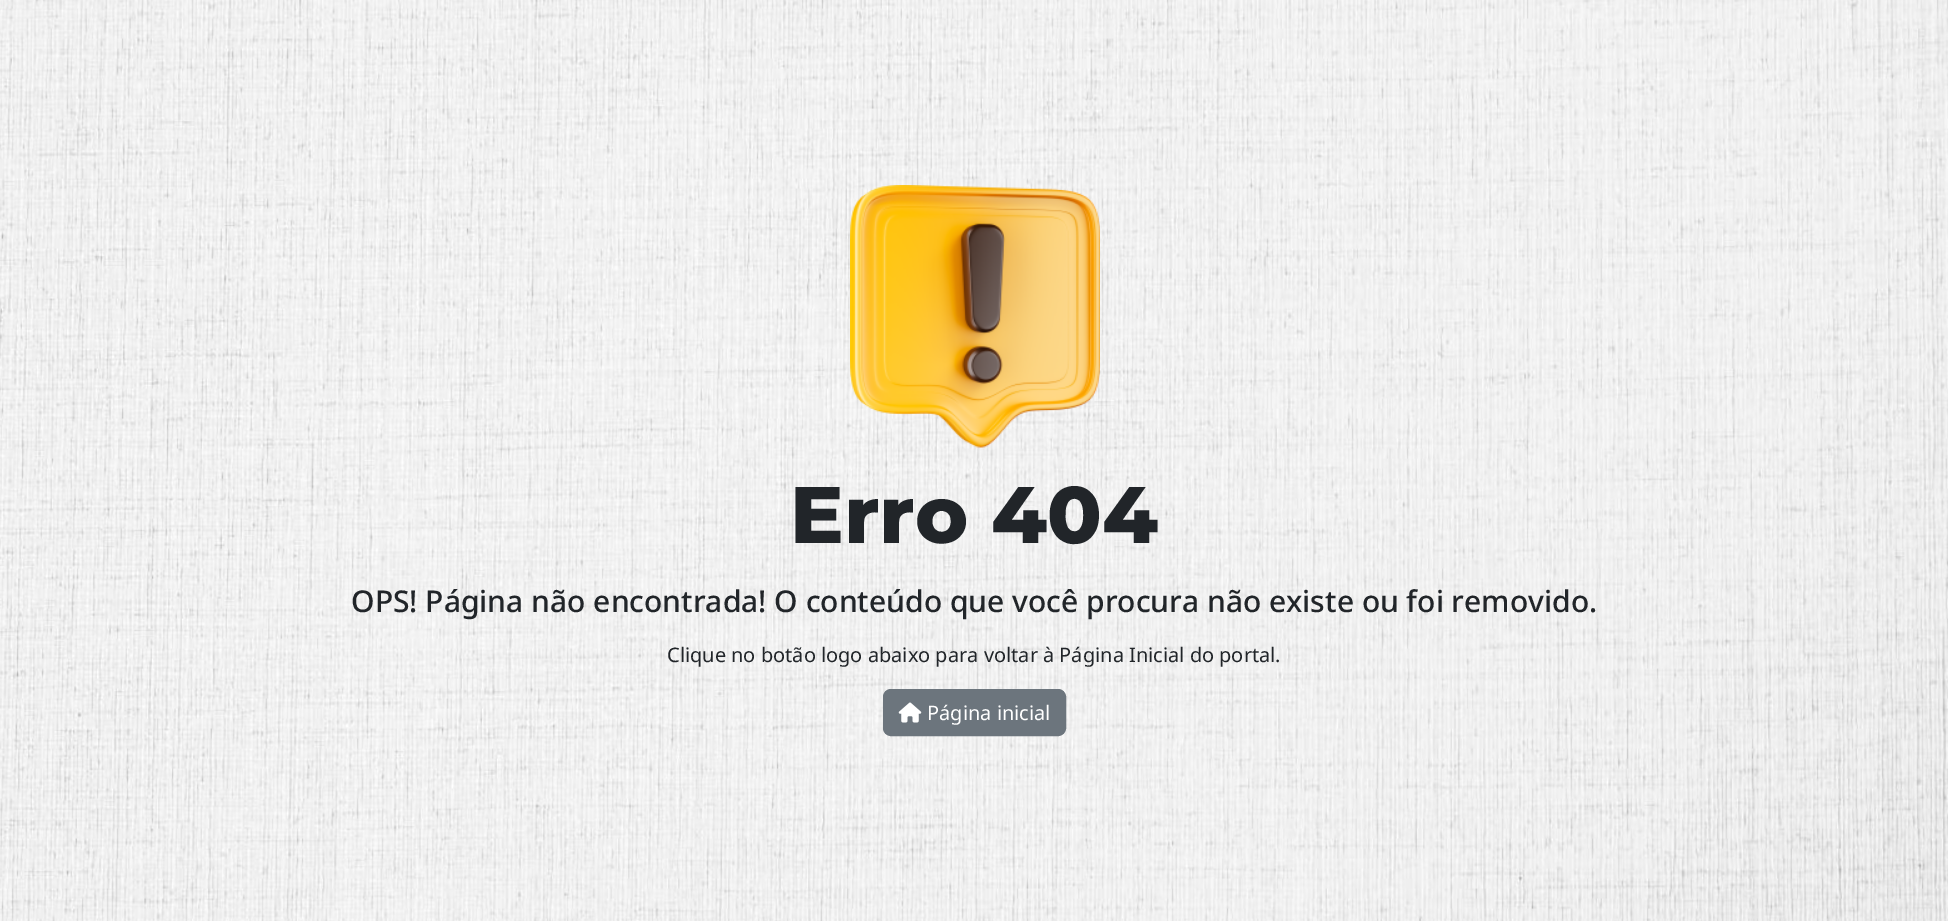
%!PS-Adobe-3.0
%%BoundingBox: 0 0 1948 921
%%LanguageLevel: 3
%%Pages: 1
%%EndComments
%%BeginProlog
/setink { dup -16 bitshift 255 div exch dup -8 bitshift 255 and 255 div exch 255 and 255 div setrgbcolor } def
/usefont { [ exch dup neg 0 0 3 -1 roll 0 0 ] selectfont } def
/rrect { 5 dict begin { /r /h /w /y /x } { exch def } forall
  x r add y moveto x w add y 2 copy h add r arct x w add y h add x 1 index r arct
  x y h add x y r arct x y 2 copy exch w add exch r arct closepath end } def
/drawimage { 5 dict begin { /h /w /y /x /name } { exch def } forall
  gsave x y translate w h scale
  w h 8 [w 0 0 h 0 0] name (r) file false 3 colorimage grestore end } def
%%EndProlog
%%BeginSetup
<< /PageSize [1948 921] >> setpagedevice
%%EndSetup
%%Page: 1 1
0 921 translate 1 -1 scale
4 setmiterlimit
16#FFFFFF setink
0 0 1948 921 rectfill
(img1.raw) 0 0 1948 921 drawimage
(img2.raw) 850 185 250 263 drawimage
/Montserrat-ExtraBold 80 usefont
16#212529 setink
790 543 moveto (Erro 404) show
/NotoSans-Medium 30 usefont
351 612 moveto (OPS! Página não encontrada! O conteúdo que você procura não existe ou foi removido.) show
/NotoSans-Regular 20 usefont
667 662 moveto (Clique no botão logo abaixo para voltar à Página Inicial do portal.) show
16#6C757D setink
883.5 689.5 182 46 7.5 rrect gsave fill grestore
stroke
(img3.raw) 898 702 24 21 drawimage
16#FFFFFF setink
927 720 moveto (Página inicial) show
showpage
%%EOF
